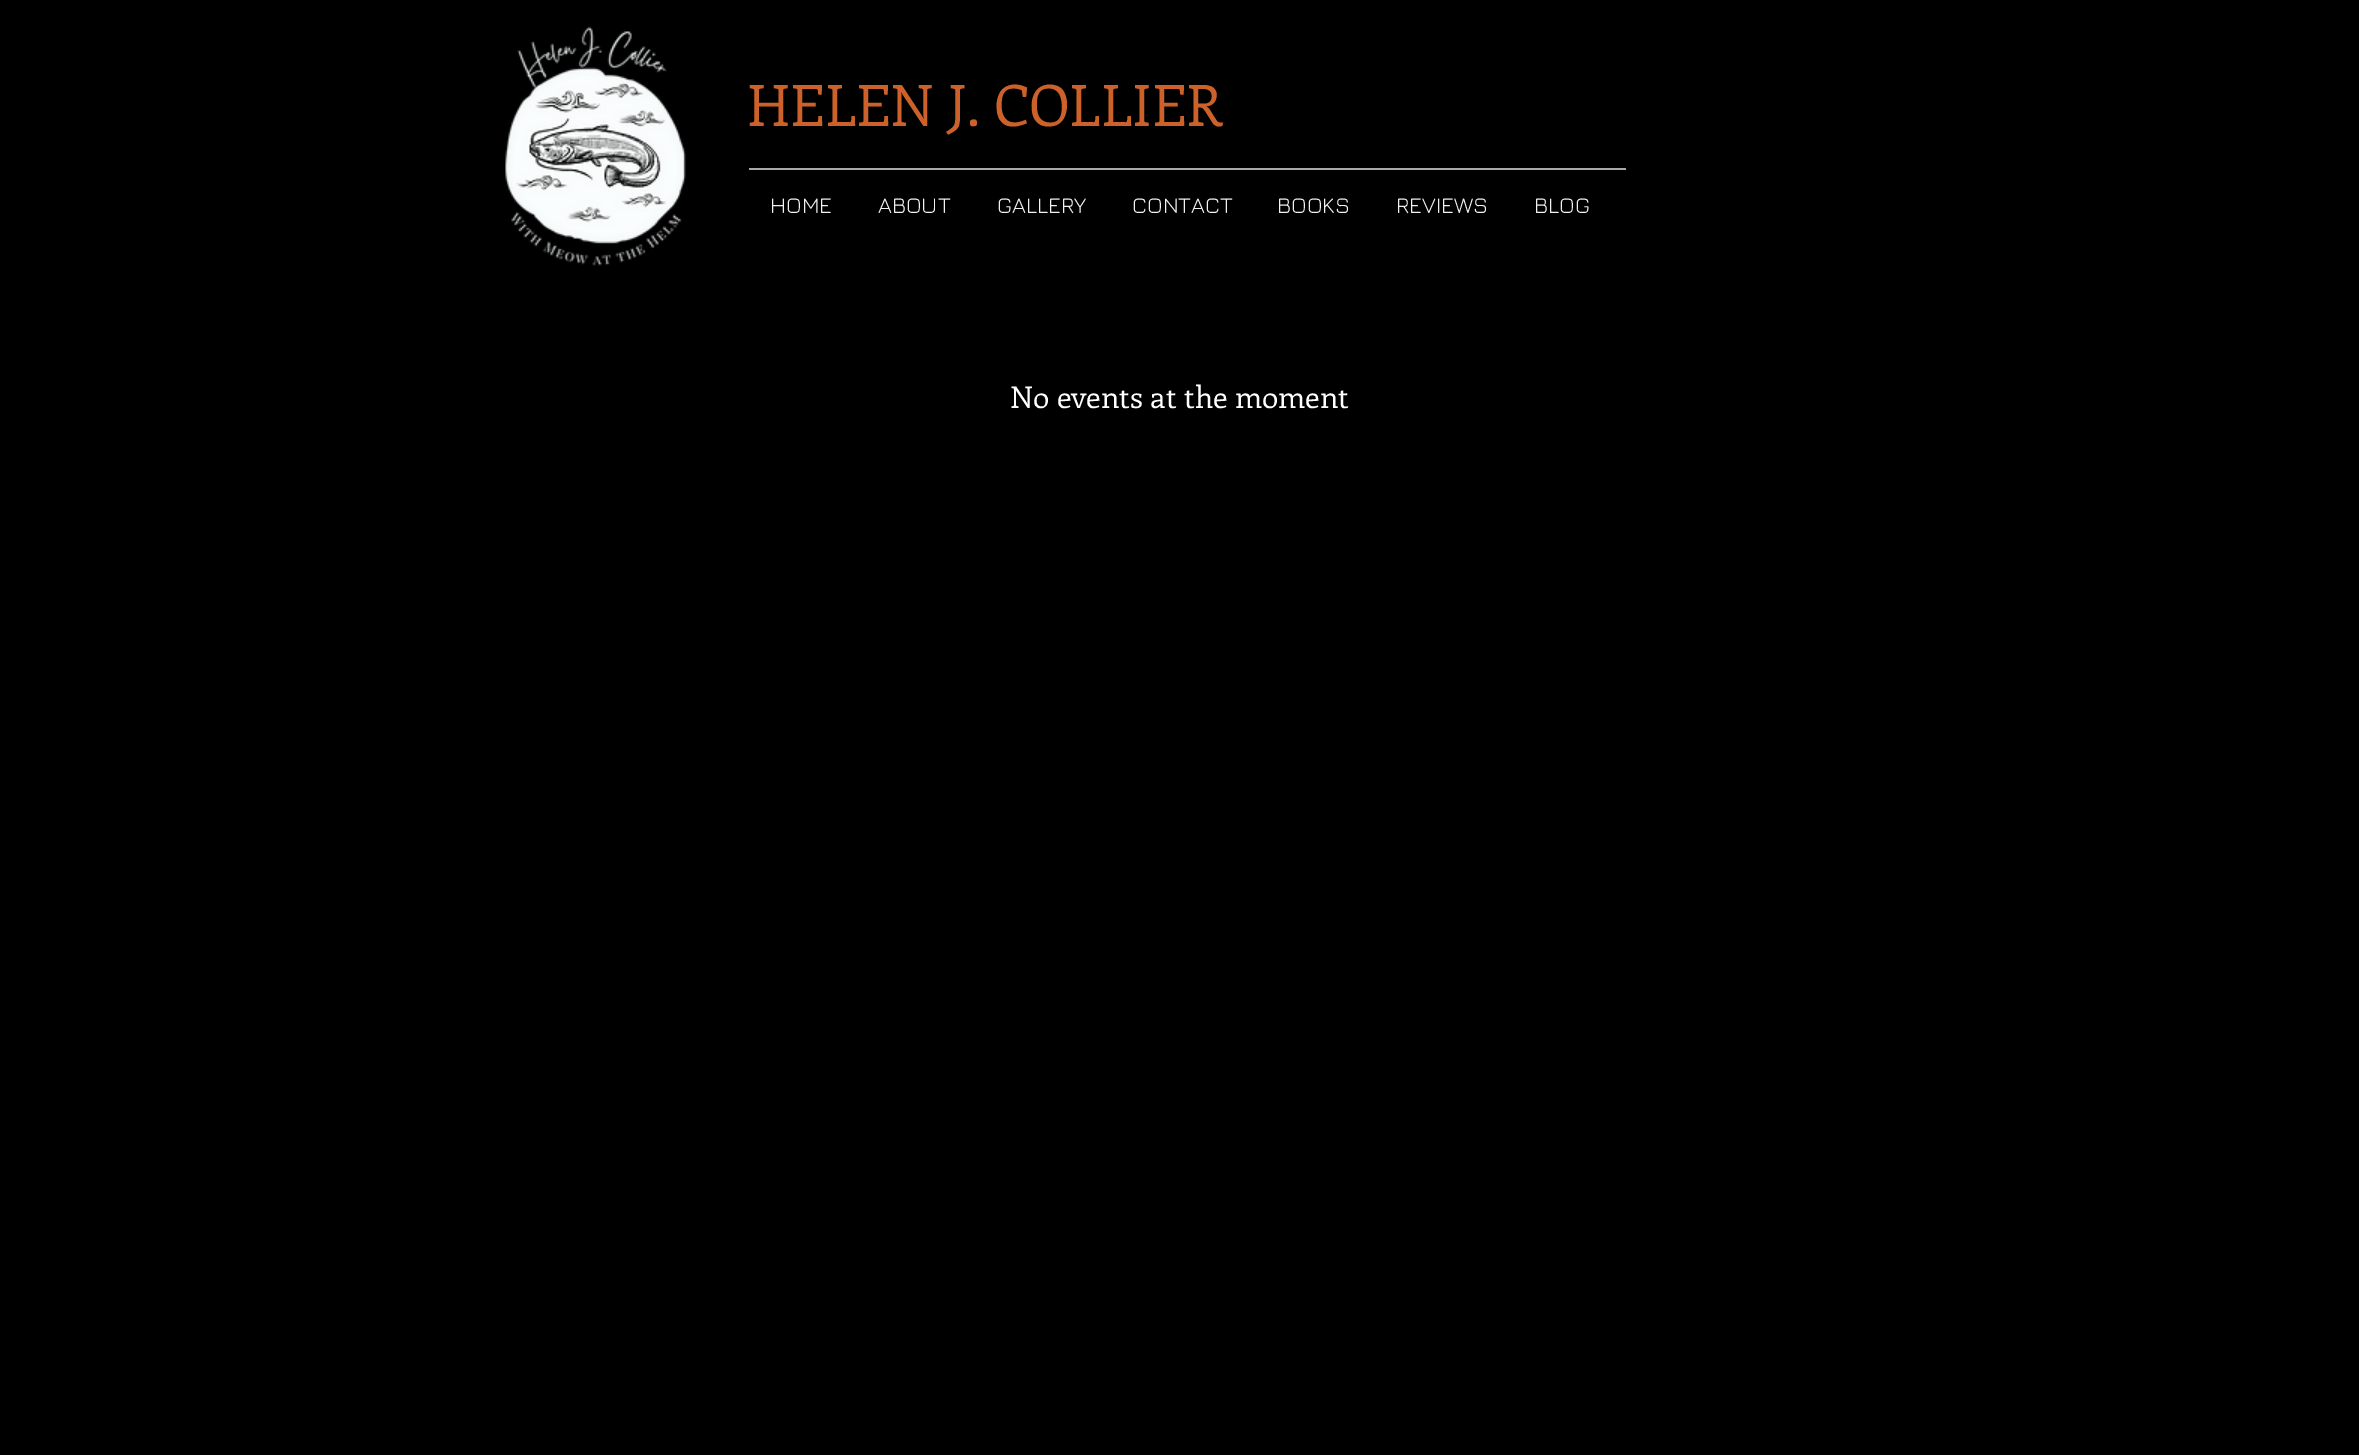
%!PS-Adobe-3.0
%%BoundingBox: 0 0 2359 1455
%%LanguageLevel: 3
%%Pages: 1
%%EndComments
%%BeginProlog
/setink { dup -16 bitshift 255 div exch dup -8 bitshift 255 and 255 div exch 255 and 255 div setrgbcolor } def
/usefont { [ exch dup neg 0 0 3 -1 roll 0 0 ] selectfont } def
/drawimage { 5 dict begin { /h /w /y /x /name } { exch def } forall
  gsave x y translate w h scale
  w h 8 [w 0 0 h 0 0] name (r) file false 3 colorimage grestore end } def
%%EndProlog
%%BeginSetup
<< /PageSize [2359 1455] >> setpagedevice
%%EndSetup
%%Page: 1 1
0 1455 translate 1 -1 scale
4 setmiterlimit
16#000000 setink
0 0 2359 1455 rectfill
(img1.raw) 505 26 181 240 drawimage
/Enriqueta-Regular 57 usefont
16#CC622A setink
748 126 moveto (HELEN J. COLLIER) show
16#AAA8A8 setink
749 168 877 2 rectfill
/Jura-Regular 22.5 usefont
16#F3F2F0 setink
[
    [(HOME) 770 213]
    [(ABOUT) 878 213]
    [(GALLERY) 997 213]
    [(CONTACT) 1132 213]
    [(BOOKS) 1277 213]
    [(REVIEWS) 1396 213]
    [(BLOG) 1534 213]
] { aload pop moveto show } forall
/Enriqueta-Regular 30 usefont
16#FFFFFF setink
1010 408 moveto (No events at the moment) show
showpage
%%EOF
